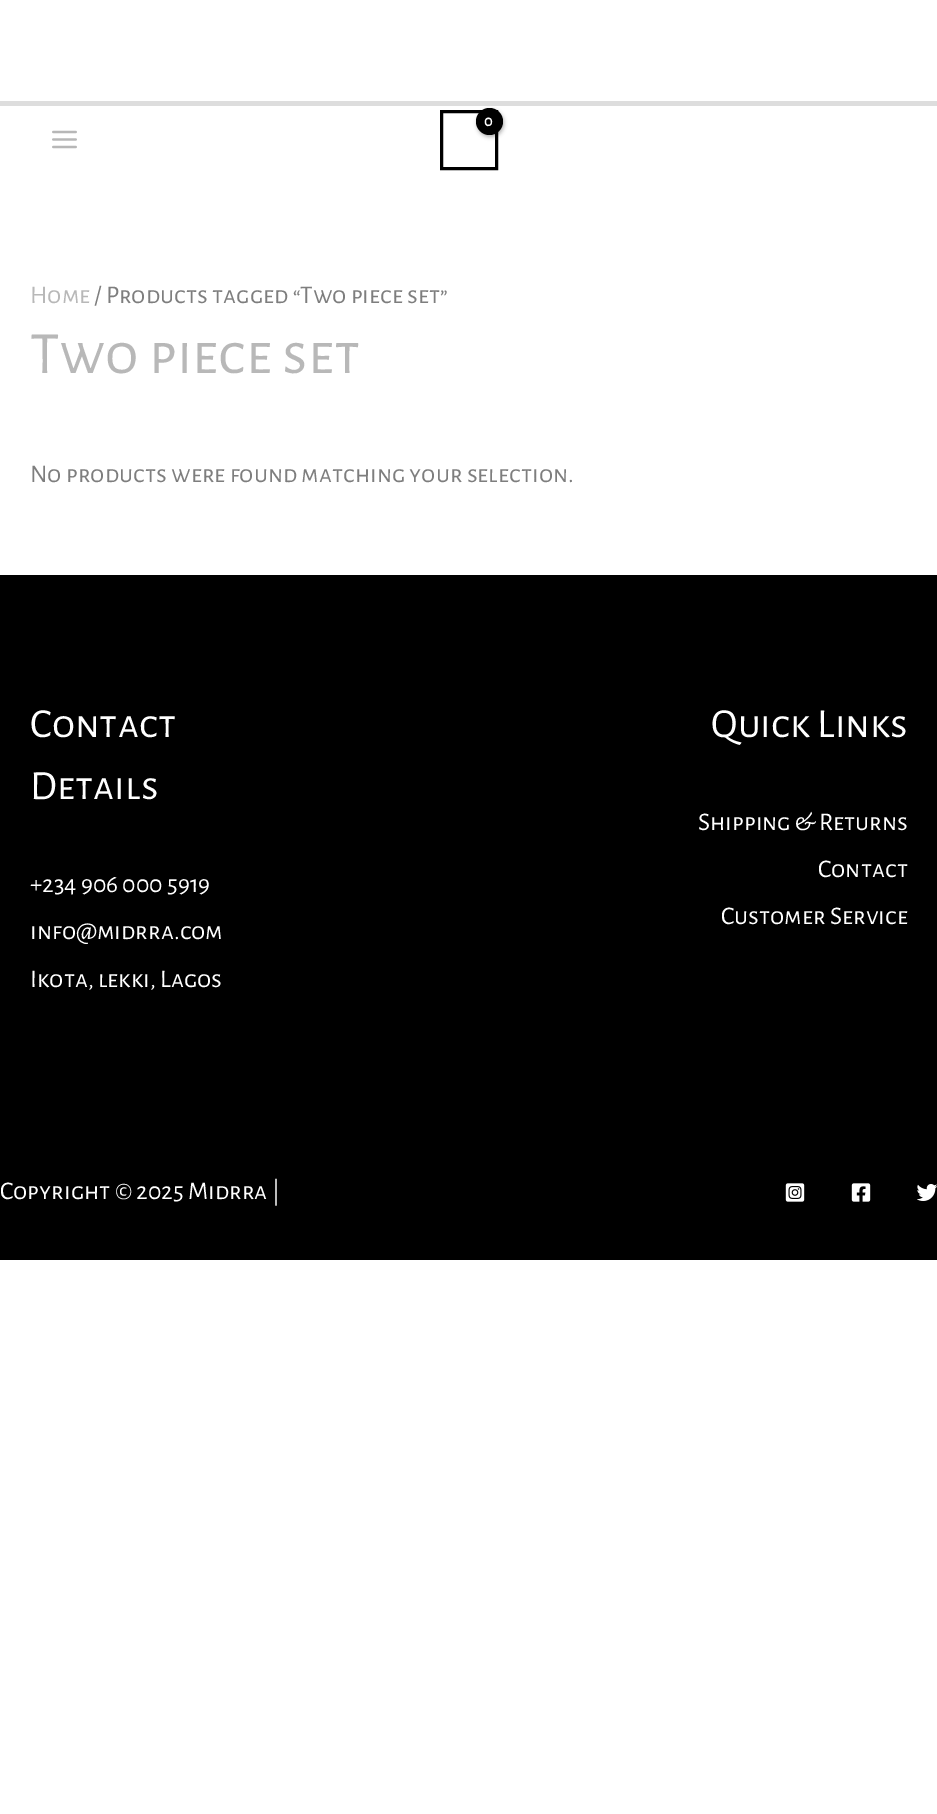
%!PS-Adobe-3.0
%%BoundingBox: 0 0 937 1814
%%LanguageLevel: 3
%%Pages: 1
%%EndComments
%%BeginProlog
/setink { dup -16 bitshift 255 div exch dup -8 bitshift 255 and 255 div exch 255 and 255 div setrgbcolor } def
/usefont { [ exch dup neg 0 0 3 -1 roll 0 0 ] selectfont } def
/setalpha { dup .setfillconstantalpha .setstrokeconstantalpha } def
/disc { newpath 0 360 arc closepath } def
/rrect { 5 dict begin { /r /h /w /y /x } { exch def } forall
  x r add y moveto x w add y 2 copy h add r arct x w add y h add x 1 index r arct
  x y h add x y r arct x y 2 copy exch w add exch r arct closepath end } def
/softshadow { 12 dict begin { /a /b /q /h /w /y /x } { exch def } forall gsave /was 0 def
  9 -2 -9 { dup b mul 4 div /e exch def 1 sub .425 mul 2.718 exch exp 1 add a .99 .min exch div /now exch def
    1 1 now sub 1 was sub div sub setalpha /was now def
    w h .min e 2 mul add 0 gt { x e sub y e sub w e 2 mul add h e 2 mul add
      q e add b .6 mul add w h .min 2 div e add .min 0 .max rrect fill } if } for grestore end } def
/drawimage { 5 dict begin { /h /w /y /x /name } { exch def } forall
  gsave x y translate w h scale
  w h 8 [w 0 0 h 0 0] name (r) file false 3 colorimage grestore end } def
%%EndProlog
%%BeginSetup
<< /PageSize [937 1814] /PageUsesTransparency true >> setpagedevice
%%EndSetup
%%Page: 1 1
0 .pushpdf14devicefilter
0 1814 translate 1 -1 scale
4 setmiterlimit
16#FFFFFF setink
0 0 937 1814 rectfill
16#000000 setink
3 setlinewidth
441.5 111.5 55 57 rectstroke
477 110 27 27 13.5 2 0.3 softshadow
16#DDDDDD setink
0 101 937 5 rectfill
16#000000 setink
489.5 121.5 13.5 disc fill
/AlegreyaSansSC-Bold 16 usefont
16#FFFFFF setink
484 126 moveto -1 0 (0) ashow
(img1.raw) 52 130 25 19 drawimage
/AlegreyaSansSC-Regular 25.5 usefont
16#B8B8B8 setink
30 303 moveto (Home) show
16#7E7E7E setink
94 303 moveto (/ Products tagged “Two piece set”) show
/AlegreyaSansSC-Regular 60 usefont
16#B8B8B8 setink
30 373 moveto (Two piece set) show
/AlegreyaSansSC-Regular 25.5 usefont
16#7E7E7E setink
30 482 moveto (No products were found matching your selection.) show
16#000000 setink
0 575 937 685 rectfill
/AlegreyaSansSC-Regular 41.5 usefont
16#FFFFFF setink
30 737 moveto (Contact) show
30 799 moveto (Details) show
/AlegreyaSansSC-Regular 25.5 usefont
[
    [(+234 906 000 5919) 30 892]
    [(info@midrra.com) 30 939]
    [(Ikota, lekki, Lagos) 30 987]
] { aload pop moveto show } forall
/AlegreyaSansSC-Regular 41.5 usefont
711 737 moveto (Quick Links) show
/AlegreyaSansSC-Regular 25.5 usefont
[
    [(Shipping & Returns) 698 830]
    [(Contact) 818 877]
    [(Customer Service) 721 924]
    [(Copyright © 2025 Midrra |) 0 1199]
] { aload pop moveto show } forall
(img2.raw) 785 1183 20 19 drawimage
(img3.raw) 851 1183 20 19 drawimage
(img4.raw) 917 1184 20 17 drawimage
.poppdf14devicefilter showpage
%%EOF
